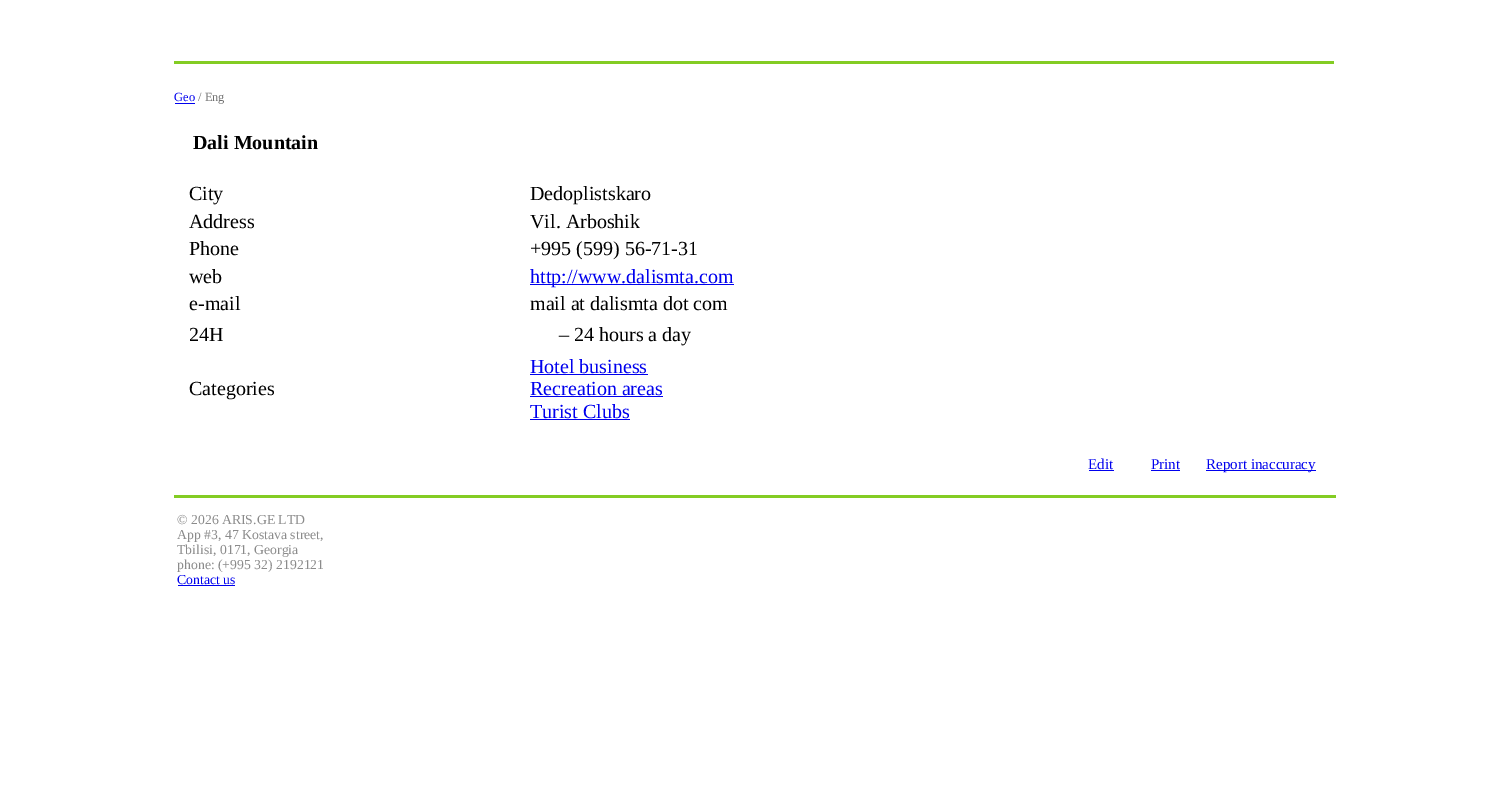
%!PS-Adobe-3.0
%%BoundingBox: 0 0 1508 797
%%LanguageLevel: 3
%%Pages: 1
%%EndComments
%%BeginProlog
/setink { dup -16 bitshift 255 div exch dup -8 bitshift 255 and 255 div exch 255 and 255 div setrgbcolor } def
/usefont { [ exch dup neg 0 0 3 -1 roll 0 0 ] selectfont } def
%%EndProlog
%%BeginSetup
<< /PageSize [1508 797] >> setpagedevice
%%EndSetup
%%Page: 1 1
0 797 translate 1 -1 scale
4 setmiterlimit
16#FFFFFF setink
0 0 1508 797 rectfill
16#83CC23 setink
174 61 1160 3 rectfill
/LiberationSerif-Regular 12.5 usefont
16#0000EE setink
174 101 moveto (Geo) show
175 103 20 1 rectfill
16#6E6E6E setink
198 101 moveto (/ Eng) show
/LiberationSerif-Bold 20 usefont
16#000000 setink
193 149 moveto (Dali Mountain) show
/LiberationSerif-Regular 20 usefont
[
    [(City) 189 200]
    [(Dedoplistskaro) 530 200]
    [(Address) 189 228]
    [(Vil. Arboshik) 530 228]
    [(Phone) 189 255]
    [(+995 \(599\) 56-71-31) 530 255]
    [(web) 189 283]
] { aload pop moveto show } forall
16#0000EE setink
530 284 204 1 rectfill
530 283 moveto (http://www.dalismta.com) show
16#000000 setink
[
    [(e-mail) 189 310]
    [(mail at dalismta dot com) 530 310]
    [(24H) 189 341]
    [(– 24 hours a day) 559 341]
    [(Categories) 189 395]
] { aload pop moveto show } forall
16#0000EE setink
530 373 moveto (Hotel business) show
530 374 118 1 rectfill
530 395 moveto (Recreation areas) show
530 396 133 1 rectfill
530 418 moveto (Turist Clubs) show
530 419 100 1 rectfill
/LiberationSerif-Regular 15 usefont
1088 469 moveto (Edit) show
1089 470 25 1 rectfill
1151 469 moveto (Print) show
1151 470 29 1 rectfill
1206 470 110 1 rectfill
1206 469 moveto (Report inaccuracy) show
16#83CC23 setink
174 495 1162 3 rectfill
/LiberationSerif-Regular 13.75 usefont
16#8B8B8B setink
[
    [(© 2026 ARIS.GE LTD) 177 524]
    [(App #3, 47 Kostava street,) 177 539]
    [(Tbilisi, 0171, Georgia) 177 554]
    [(phone: \(+995 32\) 2192121) 177 569]
] { aload pop moveto show } forall
16#0000EE setink
177 584 moveto (Contact us) show
178 585 57 1 rectfill
showpage
%%EOF
